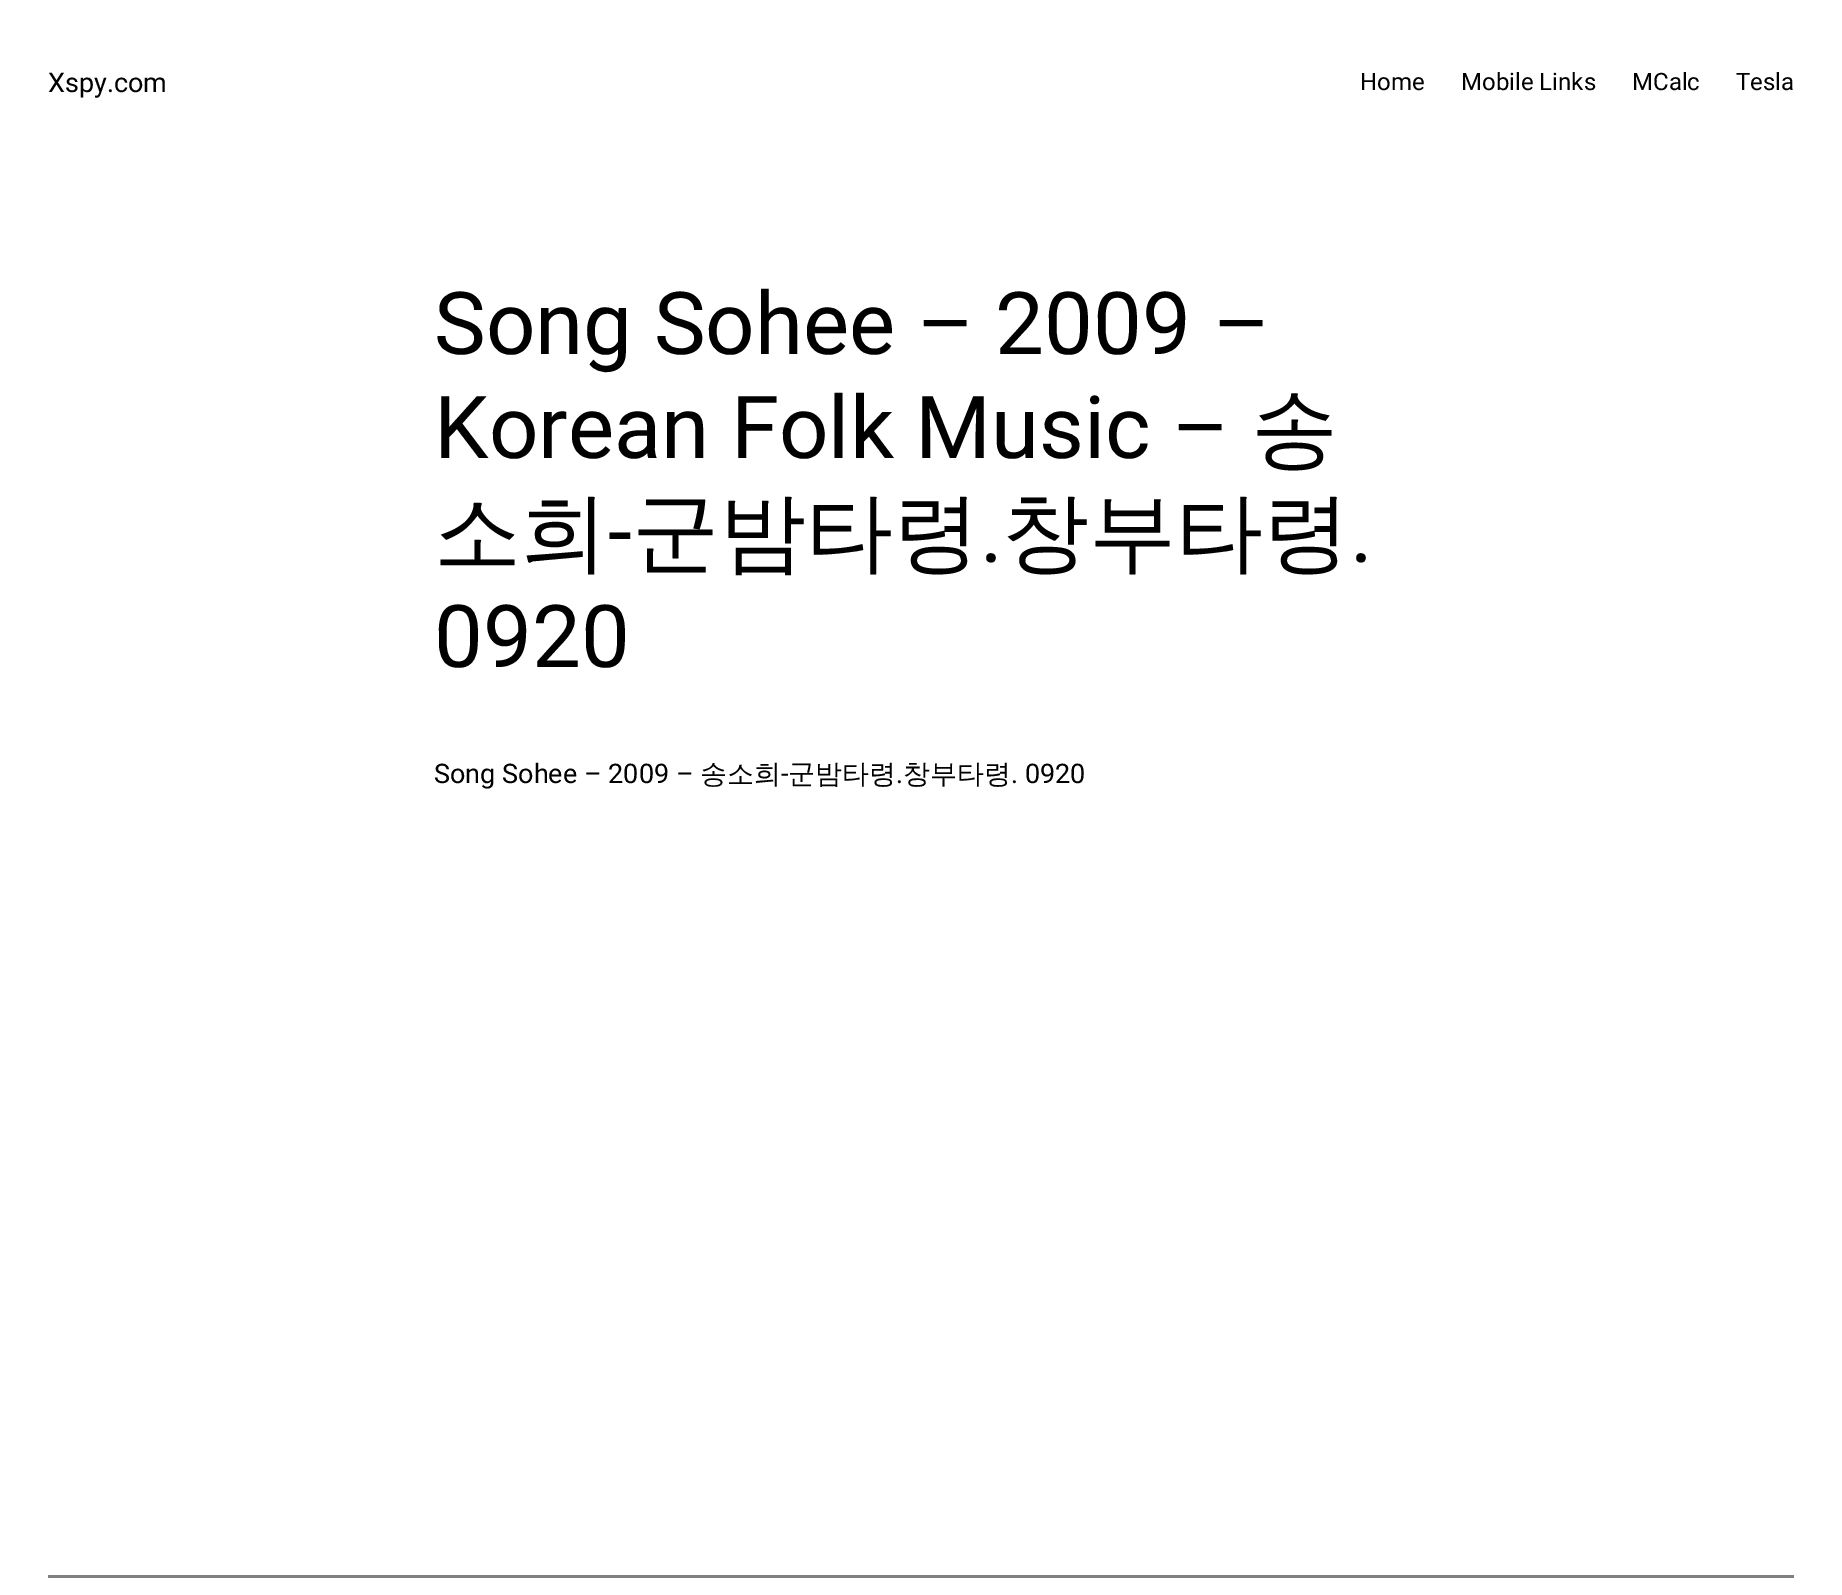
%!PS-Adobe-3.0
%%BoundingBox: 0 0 1842 1595
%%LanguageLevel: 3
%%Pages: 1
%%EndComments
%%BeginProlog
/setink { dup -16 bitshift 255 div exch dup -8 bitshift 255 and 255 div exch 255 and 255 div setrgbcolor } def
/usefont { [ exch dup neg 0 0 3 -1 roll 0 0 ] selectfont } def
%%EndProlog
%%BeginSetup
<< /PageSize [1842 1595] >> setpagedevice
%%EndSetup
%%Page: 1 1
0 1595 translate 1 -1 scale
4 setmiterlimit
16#FFFFFF setink
0 0 1842 1595 rectfill
/Roboto-Regular 27 usefont
16#000000 setink
48 92 moveto (Xspy.com) show
/Roboto-Regular 24 usefont
[
    [(Home) 1360 90]
    [(Mobile Links) 1461 90]
    [(MCalc) 1632 90]
    [(Tesla) 1736 90]
] { aload pop moveto show } forall
/Roboto-Regular 87 usefont
434 354 moveto (Song Sohee – 2009 –) show
434 458 moveto (Korean Folk Music –) show
/WenQuanYiZenHei-Medium 87 usefont
1251 458 moveto (송) show
434 562 moveto (소희) show
/Roboto-Regular 87 usefont
608 562 moveto (-) show
/WenQuanYiZenHei-Medium 87 usefont
632 562 moveto (군밤타령) show
1002 562 moveto (창부타령) show
/Roboto-Regular 87 usefont
[
    [(.) 980 562]
    [(.) 1350 562]
    [(0920) 434 667]
] { aload pop moveto show } forall
/Roboto-Regular 27 usefont
434 783 moveto (Song Sohee – 2009 –) show
/WenQuanYiZenHei-Medium 27 usefont
700 783 moveto (송소희) show
/Roboto-Regular 27 usefont
781 783 moveto (-) show
/WenQuanYiZenHei-Medium 27 usefont
788 783 moveto (군밤타령) show
903 783 moveto (창부타령) show
/Roboto-Regular 27 usefont
1011 783 moveto (. 0920) show
896 783 moveto (.) show
16#808080 setink
48 1575 1746 3 rectfill
showpage
%%EOF
